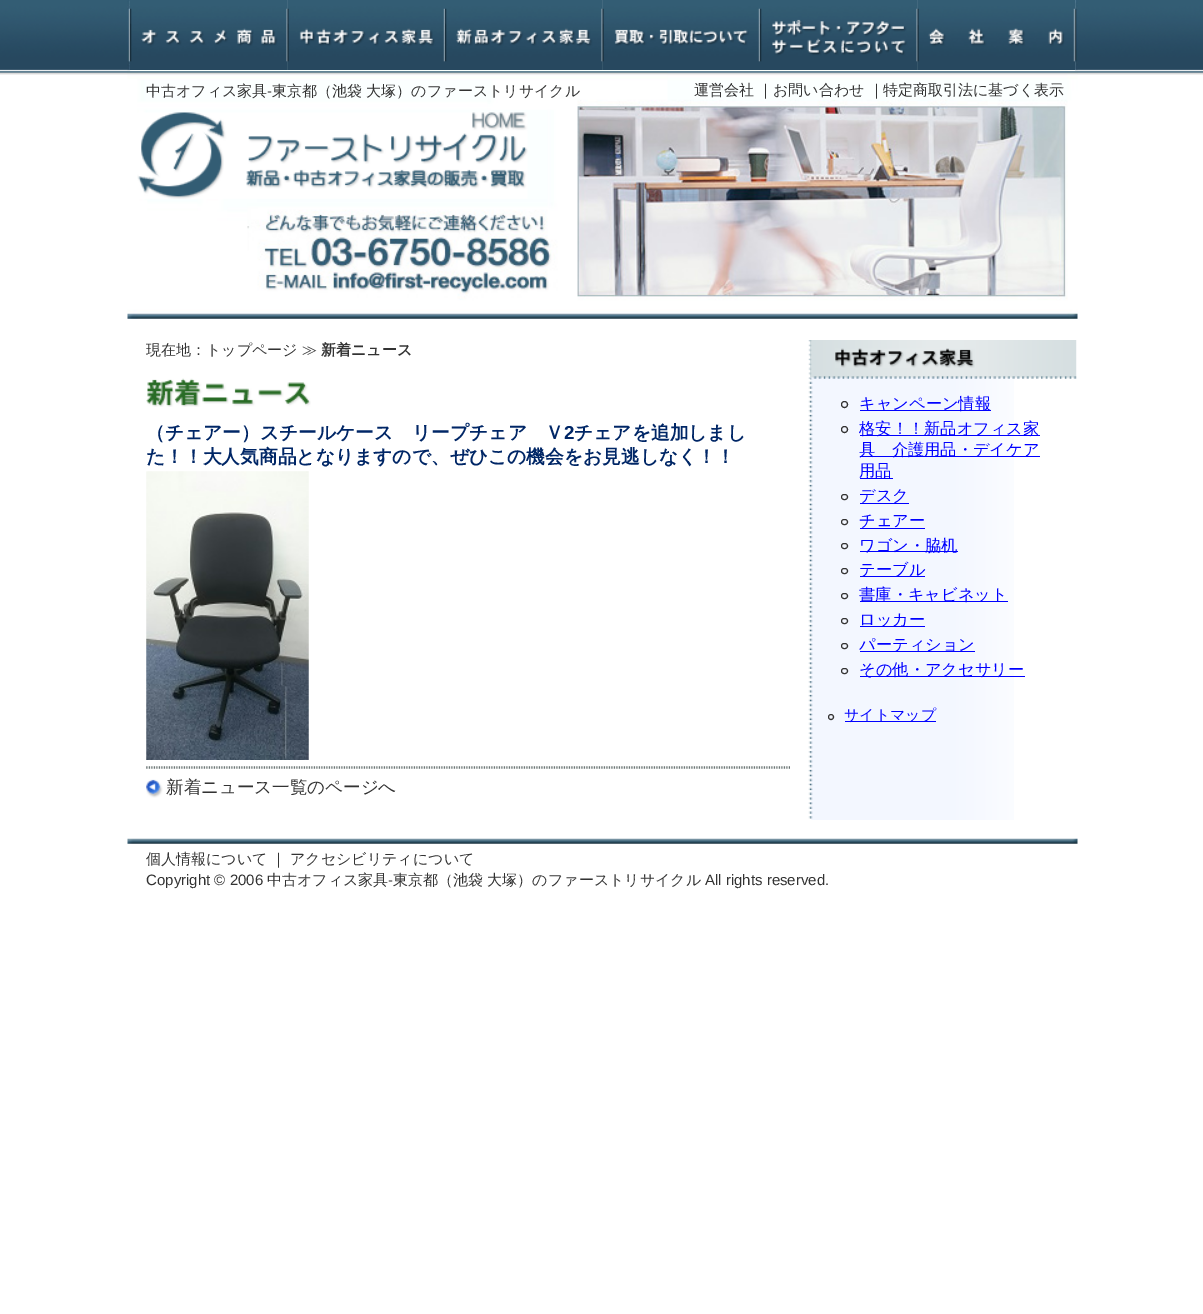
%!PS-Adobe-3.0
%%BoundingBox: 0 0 1203 1314
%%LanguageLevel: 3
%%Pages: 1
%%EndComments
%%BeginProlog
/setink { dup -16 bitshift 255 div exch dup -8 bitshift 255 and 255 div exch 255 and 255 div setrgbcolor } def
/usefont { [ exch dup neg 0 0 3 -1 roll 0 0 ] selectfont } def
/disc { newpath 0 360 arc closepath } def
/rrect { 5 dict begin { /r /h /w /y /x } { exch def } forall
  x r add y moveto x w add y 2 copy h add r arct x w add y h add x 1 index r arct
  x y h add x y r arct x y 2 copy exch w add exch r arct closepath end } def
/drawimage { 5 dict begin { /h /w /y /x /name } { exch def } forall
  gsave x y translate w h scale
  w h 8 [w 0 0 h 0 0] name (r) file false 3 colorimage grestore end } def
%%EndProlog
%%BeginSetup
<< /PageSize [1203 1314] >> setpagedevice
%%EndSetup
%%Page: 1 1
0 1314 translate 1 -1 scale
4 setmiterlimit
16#FFFFFF setink
0 0 1203 1314 rectfill
(img1.raw) 0 0 1203 75 drawimage
(img2.raw) 808 340 206 480 drawimage
(img17.raw) 127 0 951 319 drawimage
(img3.raw) 287 0 631 70 drawimage
(img4.raw) 130 0 158 70 drawimage
(img5.raw) 287 0 158 70 drawimage
(img6.raw) 445 0 158 70 drawimage
(img7.raw) 602 0 158 70 drawimage
(img8.raw) 760 0 158 70 drawimage
(img9.raw) 917 0 158 70 drawimage
/WenQuanYiZenHei-Medium 15 usefont
16#333333 setink
[
    [(運営会社) 694 95]
    [(｜) 758 95]
    [(お問い合わせ) 773 95]
    [(｜) 869 95]
    [(特定商取引法に基づく表示) 883 95]
] { aload pop moveto show } forall
(img10.raw) 137 112 391 87 drawimage
146 355 moveto (現在地：トップページ) show
302 355 moveto (≫) show
/WenQuanYiZenHei-Bold 15 usefont
321 355 moveto (新着ニュース) show
(img11.raw) 146 378 165 29 drawimage
/WenQuanYiZenHei-Bold 18.75 usefont
16#002666 setink
146 439 moveto (（チェアー）スチールケース　リープチェア　Ｖ) show
/LiberationSans-Bold 18.75 usefont
564 439 moveto (2) show
/WenQuanYiZenHei-Bold 18.75 usefont
574 439 moveto (チェアを追加しまし) show
146 463 moveto (た！！大人気商品となりますので、ぜひこの機会をお見逃しなく！！) show
(img12.raw) 146 471 163 289 drawimage
(img13.raw) 146 766 644 3 drawimage
(img14.raw) 146 779 17 19 drawimage
/WenQuanYiZenHei-Medium 17.5 usefont
16#333333 setink
166 793 moveto (新着ニュース一覧のページへ) show
(img15.raw) 810 340 267 39 drawimage
(img16.raw) 835 348 140 20 drawimage
844.5 404.5 3 disc stroke
16#0000FF setink
860 410 131 1 rectfill
/WenQuanYiZenHei-Medium 16.25 usefont
859 409 moveto (キャンペーン情報) show
16#333333 setink
844.5 429.5 3 disc stroke
16#0000FF setink
860 435 180 1 rectfill
859 434 moveto (格安！！新品オフィス家) show
860 456 180 1 rectfill
859 455 moveto (具　介護用品・デイケア) show
859 476 moveto (用品) show
860 478 33 1 rectfill
16#333333 setink
841.5 494.5 6 5 2.5 rrect stroke
16#0000FF setink
860 503 49 1 rectfill
859 501 moveto (デスク) show
16#333333 setink
841.5 519.5 6 5 2.5 rrect stroke
16#0000FF setink
859 526 moveto (チェアー) show
860 528 65 1 rectfill
16#333333 setink
841.5 543.5 6 5 2.5 rrect stroke
16#0000FF setink
860 551 98 1 rectfill
859 551 moveto (ワゴン・脇机) show
16#333333 setink
841.5 568.5 6 5 2.5 rrect stroke
16#0000FF setink
860 576 65 1 rectfill
859 575 moveto (テーブル) show
16#333333 setink
841.5 593.5 6 5 2.5 rrect stroke
16#0000FF setink
860 601 148 1 rectfill
859 600 moveto (書庫・キャビネット) show
16#333333 setink
841.5 618.5 6 5 2.5 rrect stroke
16#0000FF setink
860 626 65 1 rectfill
859 625 moveto (ロッカー) show
16#333333 setink
841.5 643.5 6 5 2.5 rrect stroke
16#0000FF setink
860 651 115 1 rectfill
859 650 moveto (パーティション) show
16#333333 setink
841.5 668.5 6 5 2.5 rrect stroke
16#0000FF setink
860 676 165 1 rectfill
859 675 moveto (その他・アクセサリー) show
16#333333 setink
831 717 2.5 disc stroke
16#0000FF setink
845 721 91 1 rectfill
/WenQuanYiZenHei-Medium 15 usefont
844 720 moveto (サイトマップ) show
16#333333 setink
146 96 moveto (中古オフィス家具) show
/LiberationSans-Regular 15 usefont
267 96 moveto (-) show
/WenQuanYiZenHei-Medium 15 usefont
272 96 moveto (東京都（池袋 大塚）のファーストリサイクル) show
(img18.raw) 127 838 951 6 drawimage
[
    [(個人情報について) 146 864]
    [(｜) 271 864]
    [(アクセシビリティについて) 290 864]
] { aload pop moveto show } forall
/LiberationSans-Regular 15 usefont
146 885 moveto (Copyright © 2006) show
/WenQuanYiZenHei-Medium 15 usefont
267 885 moveto (中古オフィス家具) show
/LiberationSans-Regular 15 usefont
388 885 moveto (-) show
/WenQuanYiZenHei-Medium 15 usefont
393 885 moveto (東京都（池袋 大塚）のファーストリサイクル) show
/LiberationSans-Regular 15 usefont
705 885 moveto (All rights reserved.) show
showpage
%%EOF
